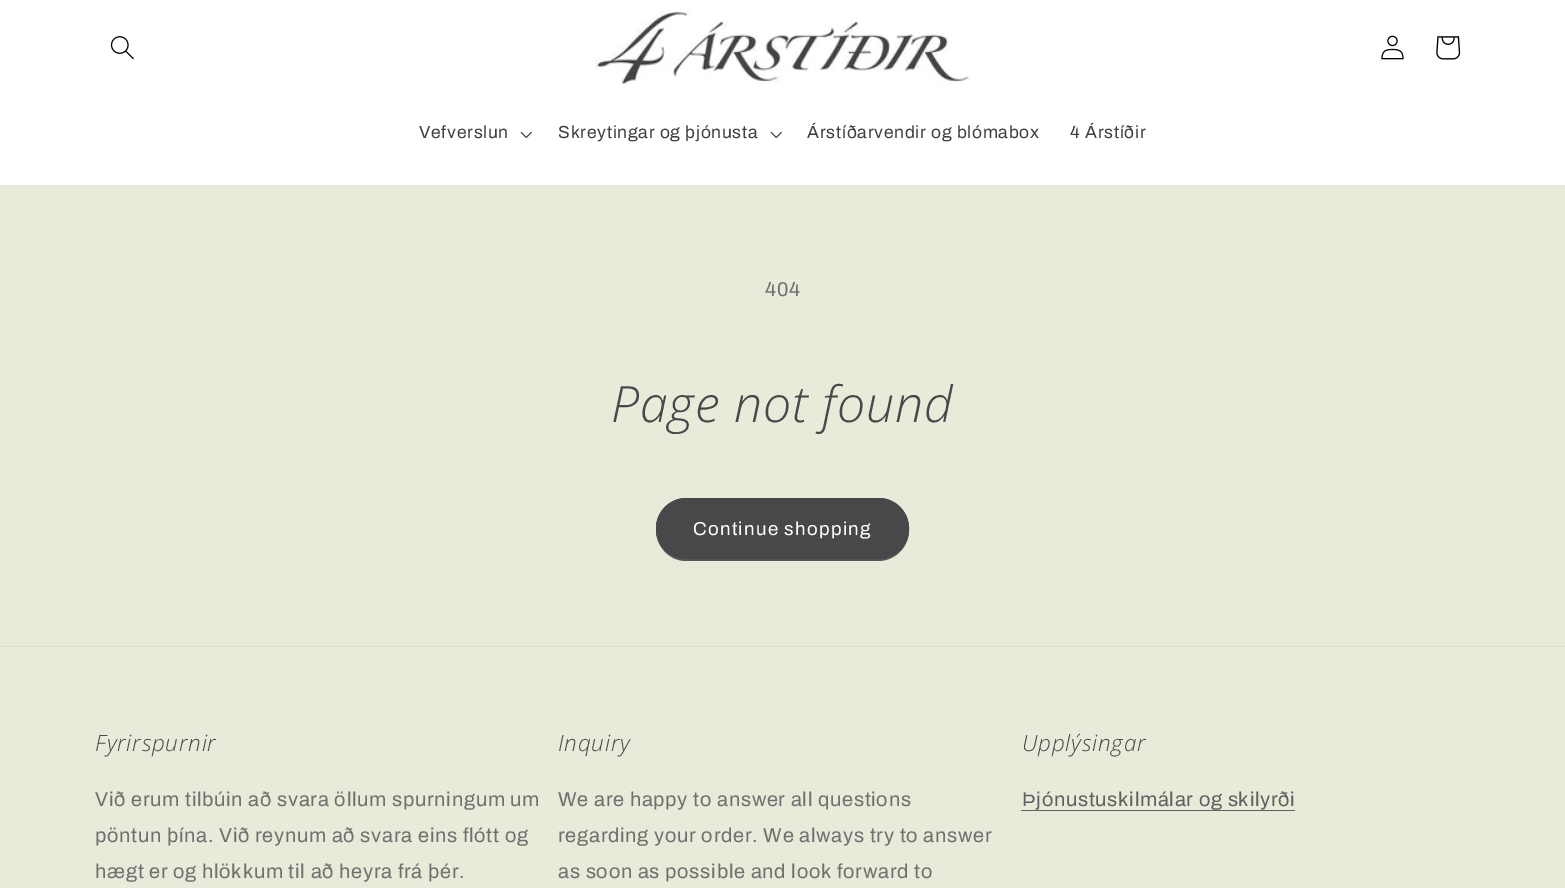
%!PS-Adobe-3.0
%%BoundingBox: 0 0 1565 888
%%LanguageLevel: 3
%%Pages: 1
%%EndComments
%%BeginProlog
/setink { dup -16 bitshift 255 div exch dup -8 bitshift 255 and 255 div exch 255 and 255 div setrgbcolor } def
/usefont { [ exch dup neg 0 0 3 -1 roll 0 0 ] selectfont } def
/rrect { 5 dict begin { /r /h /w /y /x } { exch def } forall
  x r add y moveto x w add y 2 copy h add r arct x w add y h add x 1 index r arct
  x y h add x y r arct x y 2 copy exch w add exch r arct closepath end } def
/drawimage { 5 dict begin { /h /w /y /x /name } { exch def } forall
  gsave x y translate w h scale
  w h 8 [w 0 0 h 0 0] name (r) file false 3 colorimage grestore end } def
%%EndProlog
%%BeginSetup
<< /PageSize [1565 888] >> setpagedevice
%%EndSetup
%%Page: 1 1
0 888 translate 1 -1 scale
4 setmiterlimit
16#E7ECDA setink
0 0 1565 888 rectfill
16#FFFFFF setink
0 0 1565 185 rectfill
(img1.raw) 110 36 24 24 drawimage
(img2.raw) 595 11 375 74 drawimage
(img3.raw) 1381 35 23 25 drawimage
(img4.raw) 1436 36 25 24 drawimage
/Archivo-Regular 17.5 usefont
16#404040 setink
419 138 moveto 0.75 0 (Vefverslun) ashow
(img5.raw) 520 131 12 8 drawimage
558 138 moveto 0.75 0 (Skreytingar og þjónusta) ashow
(img5.raw) 770 131 12 8 drawimage
807 138 moveto 0.75 0 (Árstíðarvendir og blómabox) ashow
1070 138 moveto 0.75 0 (4 Árstíðir) ashow
/Archivo-Regular 20 usefont
16#6F716E setink
765 296 moveto 0.75 0 (404) ashow
/OpenSans-LightItalic 50 usefont
16#47484A setink
611 422 moveto 0.75 0 (Page not found) ashow
16#575858 setink
656 526 moveto 656 530 lineto 656 547 670 561 686 561 curveto 878 561 lineto 895 561 909 547 909 530 curveto 909 526 lineto 909 528 lineto 909 545 895 559 878 559 curveto 687 559 lineto 670 559 656 545 656 528 curveto closepath fill
16#47484A setink
656 498 253 61 30.5 rrect fill
3 setlinewidth
657.5 499.5 250 58 29 rrect stroke
/Archivo-Regular 18.75 usefont
16#FFFFFF setink
693 535 moveto 1.25 0 (Continue shopping) ashow
16#DADFCE setink
0 646 1565 1 rectfill
/OpenSans-LightItalic 22.5 usefont
16#47484A setink
95 751 moveto 0.75 0 (Fyrirspurnir) ashow
/Archivo-Regular 20 usefont
16#6F716E setink
95 806 moveto 0.75 0 (Við erum tilbúin að svara öllum spurningum um) ashow
95 842 moveto 0.75 0 (pöntun þína. Við reynum að svara eins flótt og) ashow
95 878 moveto 0.75 0 (hægt er og hlökkum til að heyra frá þér.) ashow
/OpenSans-LightItalic 22.5 usefont
16#47484A setink
558 751 moveto 0.75 0 (Inquiry) ashow
/Archivo-Regular 20 usefont
16#6F716E setink
558 806 moveto 0.75 0 (We are happy to answer all questions) ashow
558 842 moveto 0.75 0 (regarding your order. We always try to answer) ashow
558 878 moveto 0.75 0 (as soon as possible and look forward to) ashow
/OpenSans-LightItalic 22.5 usefont
16#47484A setink
1022 751 moveto 0.75 0 (Upplýsingar) ashow
/Archivo-Regular 20 usefont
16#5F6160 setink
1022 806 moveto 0.75 0 (Þjónustuskilmálar og skilyrði) ashow
1021 810 274 1 rectfill
showpage
%%EOF
